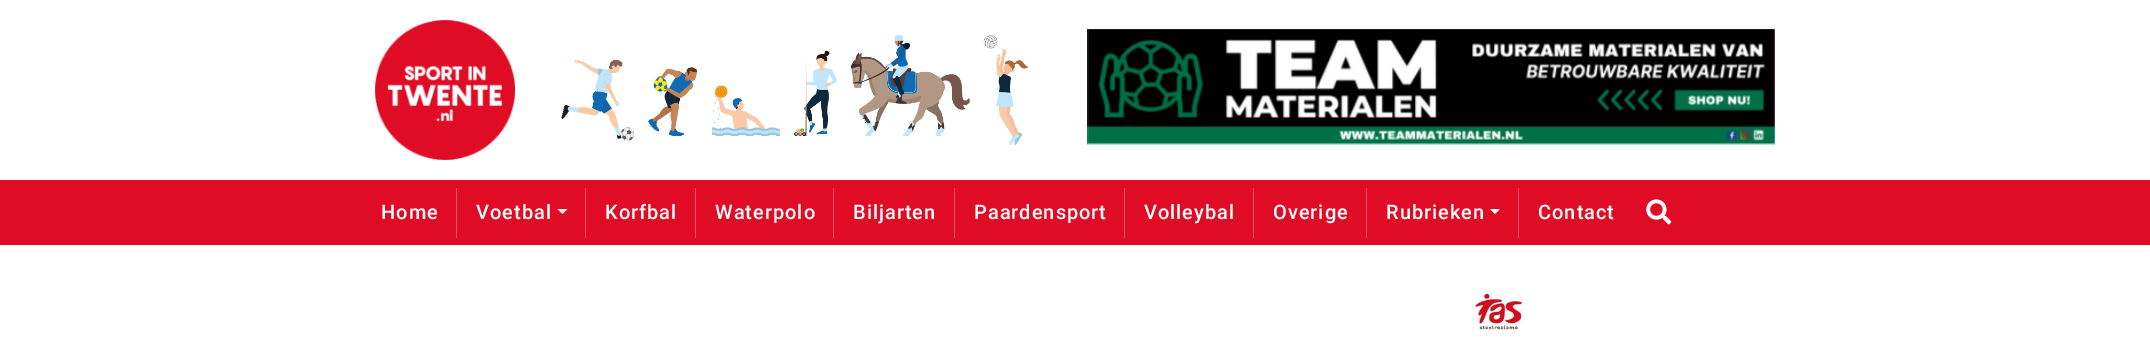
%!PS-Adobe-3.0
%%BoundingBox: 0 0 2150 337
%%LanguageLevel: 3
%%Pages: 1
%%EndComments
%%BeginProlog
/setink { dup -16 bitshift 255 div exch dup -8 bitshift 255 and 255 div exch 255 and 255 div setrgbcolor } def
/usefont { [ exch dup neg 0 0 3 -1 roll 0 0 ] selectfont } def
/drawimage { 5 dict begin { /h /w /y /x /name } { exch def } forall
  gsave x y translate w h scale
  w h 8 [w 0 0 h 0 0] name (r) file false 3 colorimage grestore end } def
%%EndProlog
%%BeginSetup
<< /PageSize [2150 337] >> setpagedevice
%%EndSetup
%%Page: 1 1
0 337 translate 1 -1 scale
4 setmiterlimit
16#FFFFFF setink
0 0 2150 337 rectfill
(img1.raw) 375 20 140 140 drawimage
(img2.raw) 561 35 468 110 drawimage
(img3.raw) 1087 29 1 116 drawimage
(img4.raw) 1087 29 688 116 drawimage
(img5.raw) 1774 29 1 116 drawimage
16#E00C25 setink
0 180 2150 65 rectfill
/Roboto-Medium 20 usefont
16#FFFFFF setink
381 219 moveto 1 0 (Home) ashow
16#E95566 setink
456 188 1 50 rectfill
16#FFFFFF setink
476 219 moveto 1 0 (Voetbal) ashow
557.5 209 moveto 567.5 209 lineto 562.5 214 lineto closepath fill
16#E95566 setink
585 188 1 50 rectfill
16#FFFFFF setink
605 219 moveto 1 0 (Korfbal) ashow
16#E95566 setink
695 188 1 50 rectfill
16#FFFFFF setink
715 219 moveto 1 0 (Waterpolo) ashow
16#E95566 setink
833 188 1 50 rectfill
16#FFFFFF setink
853 219 moveto 1 0 (Biljarten) ashow
16#E95566 setink
954 188 1 50 rectfill
16#FFFFFF setink
974 219 moveto 1 0 (Paardensport) ashow
16#E95566 setink
1124 188 1 50 rectfill
16#FFFFFF setink
1144 219 moveto 1 0 (Volleybal) ashow
16#E95566 setink
1253 188 1 50 rectfill
16#FFFFFF setink
1273 219 moveto 1 0 (Overige) ashow
16#E95566 setink
1366 188 1 50 rectfill
16#FFFFFF setink
1386 219 moveto 1 0 (Rubrieken) ashow
1490 209 moveto 1500 209 lineto 1495 214 lineto closepath fill
16#E95566 setink
1518 188 1 50 rectfill
16#FFFFFF setink
1538 219 moveto 1 0 (Contact) ashow
(img6.raw) 1646 199 26 26 drawimage
(img7.raw) 1473 291 52 39 drawimage
showpage
%%EOF
